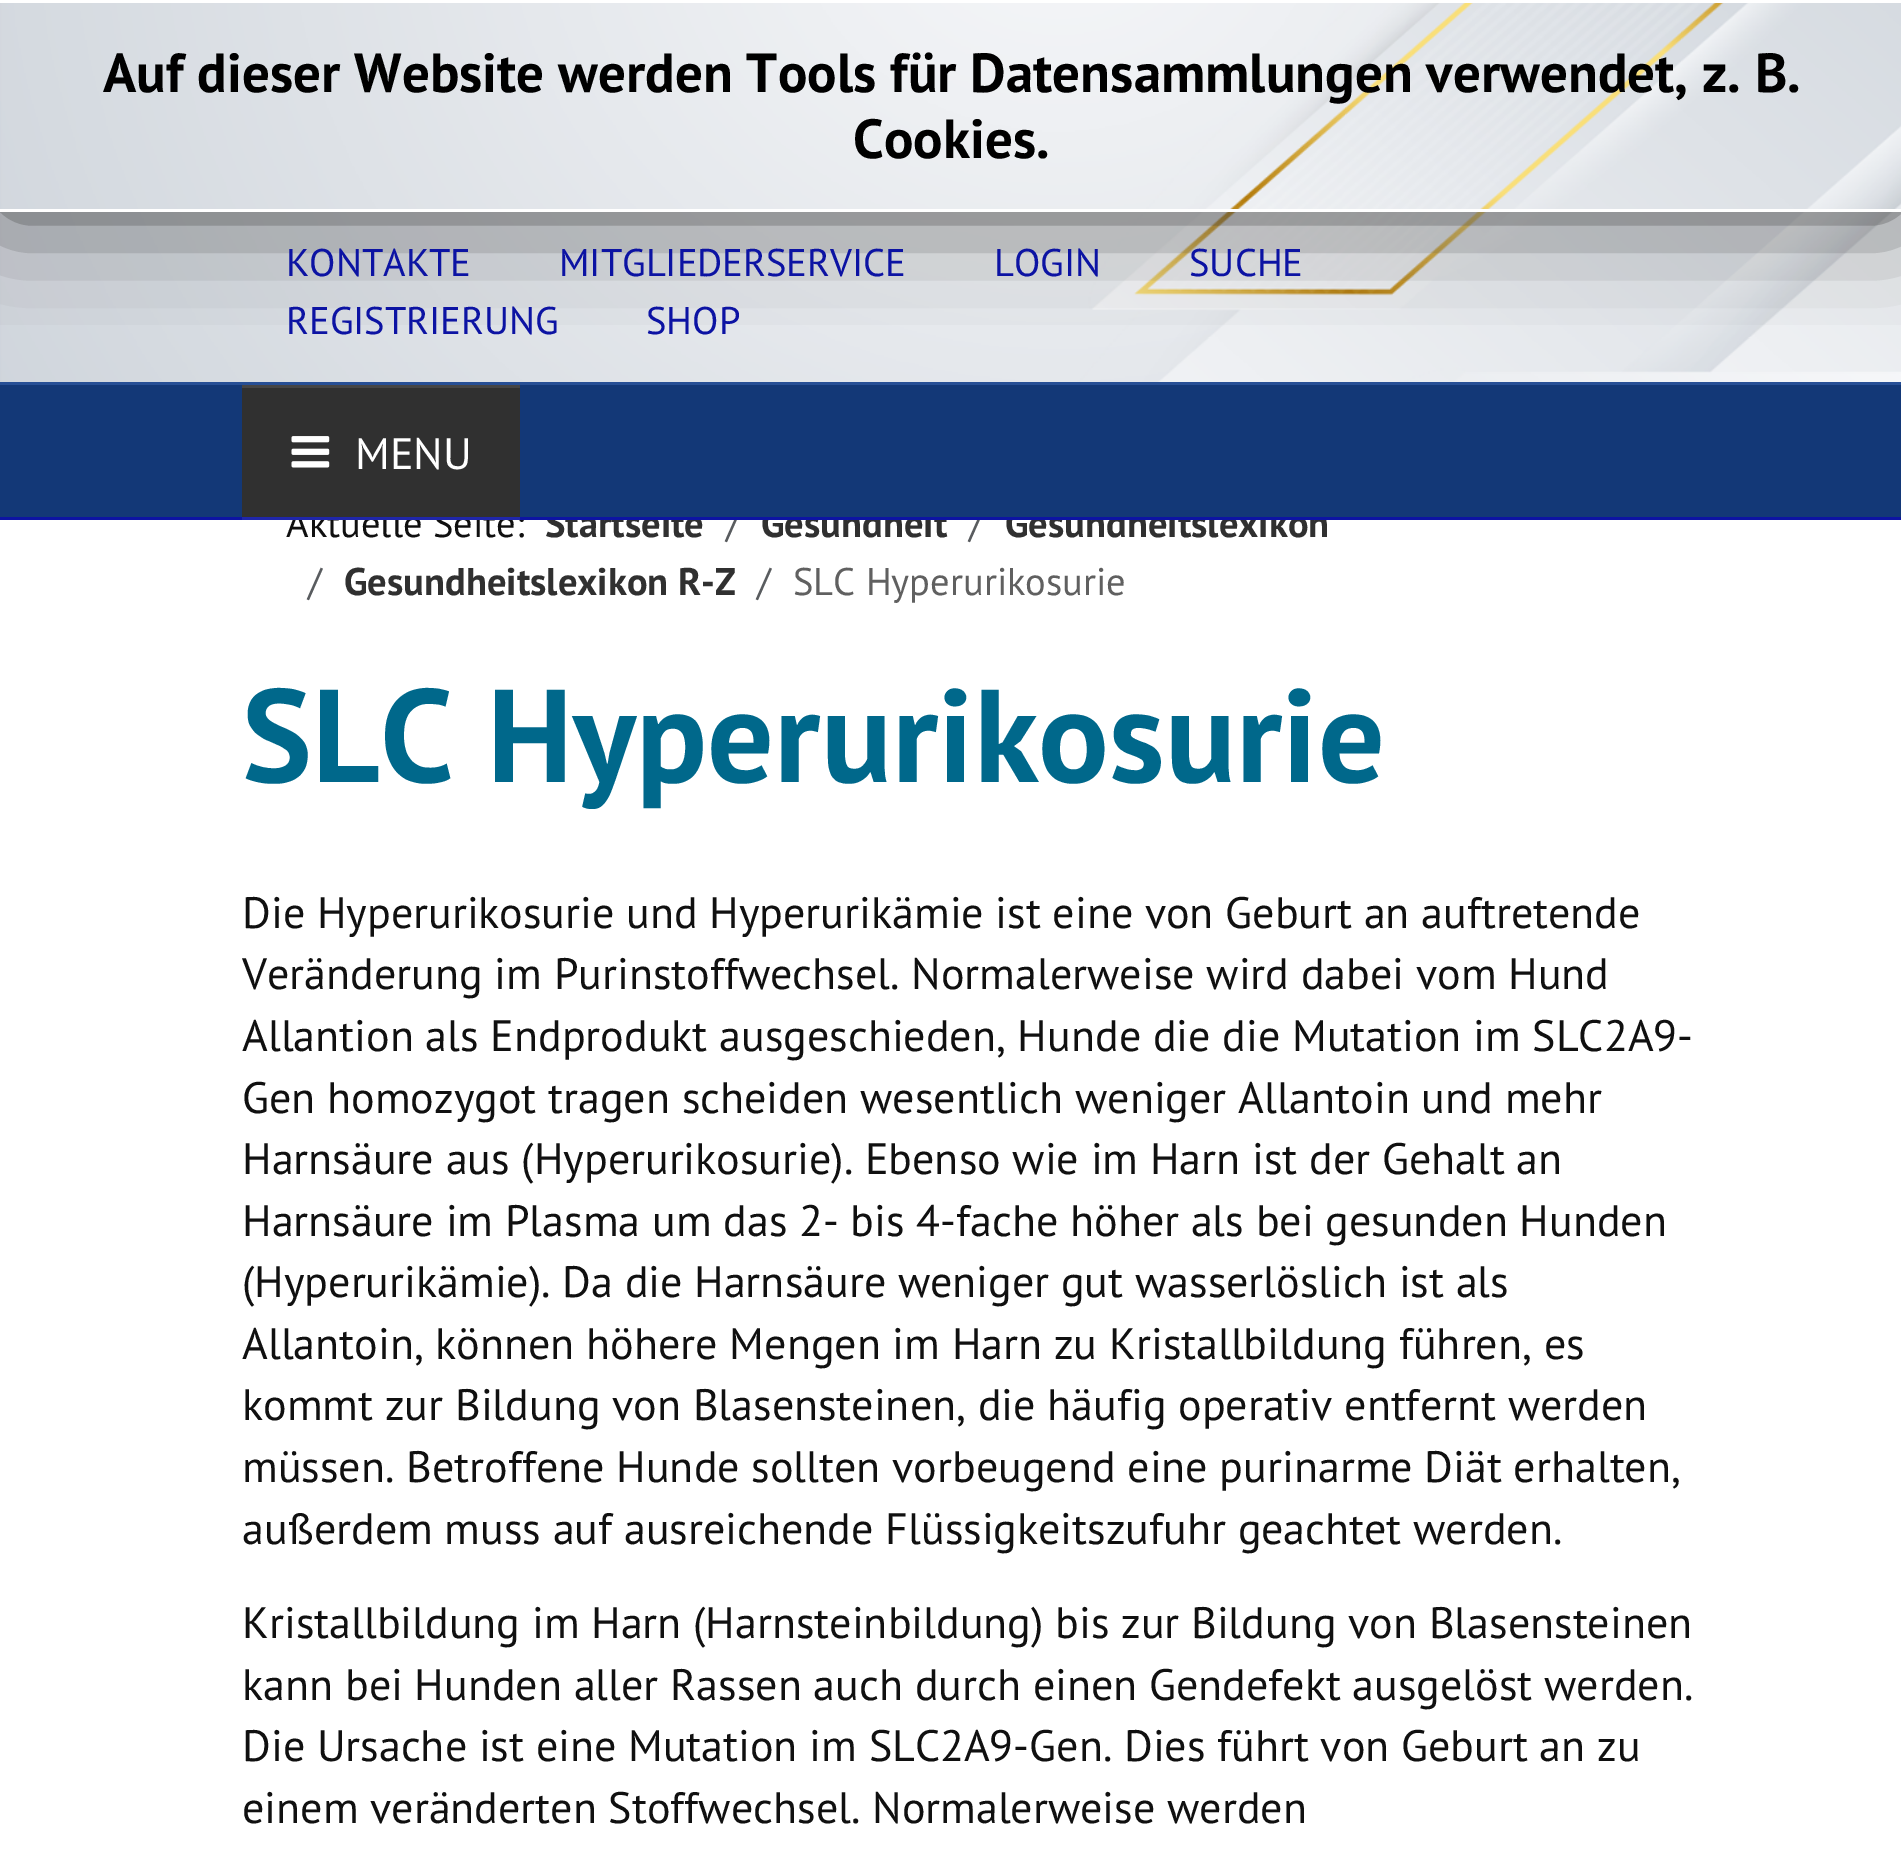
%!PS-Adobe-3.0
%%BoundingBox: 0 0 1901 1853
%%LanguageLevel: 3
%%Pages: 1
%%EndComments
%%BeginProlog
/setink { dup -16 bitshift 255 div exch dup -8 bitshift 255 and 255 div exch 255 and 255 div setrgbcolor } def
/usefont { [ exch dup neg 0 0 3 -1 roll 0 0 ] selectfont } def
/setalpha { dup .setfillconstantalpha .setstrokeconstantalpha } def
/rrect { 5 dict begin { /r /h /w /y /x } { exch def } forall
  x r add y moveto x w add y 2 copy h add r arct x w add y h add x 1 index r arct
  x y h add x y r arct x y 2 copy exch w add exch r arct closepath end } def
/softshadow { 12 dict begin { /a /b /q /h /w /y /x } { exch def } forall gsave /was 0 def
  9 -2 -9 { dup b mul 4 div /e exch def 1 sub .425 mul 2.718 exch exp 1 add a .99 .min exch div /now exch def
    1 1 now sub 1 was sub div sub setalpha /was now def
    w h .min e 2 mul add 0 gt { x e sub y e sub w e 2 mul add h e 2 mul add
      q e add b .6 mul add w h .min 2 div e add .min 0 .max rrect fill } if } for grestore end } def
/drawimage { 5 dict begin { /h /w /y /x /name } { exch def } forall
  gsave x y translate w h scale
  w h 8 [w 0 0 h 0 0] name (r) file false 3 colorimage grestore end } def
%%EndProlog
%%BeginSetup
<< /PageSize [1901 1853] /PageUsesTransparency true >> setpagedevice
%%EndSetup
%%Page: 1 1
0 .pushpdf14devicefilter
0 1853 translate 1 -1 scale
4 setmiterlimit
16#FFFFFF setink
0 0 1901 1853 rectfill
(img1.raw) 0 3 1901 379 drawimage
gsave
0 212 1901 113 rectclip
16#444444 setink
0 0 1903 212 0 55 1 softshadow
grestore
0 209 1901 3 rectfill
/PTSans-Bold 55 usefont
16#000000 setink
103 92 moveto (Auf dieser Website werden Tools für Datensammlungen verwendet, z. B.) show
853 158 moveto (Cookies.) show
/PTSans-Regular 38.5 usefont
16#101010 setink
286 537 moveto (Aktuelle Seite:) show
/PTSans-Bold 38.5 usefont
16#303030 setink
545 537 moveto (Startseite) show
/PTSans-Regular 38.5 usefont
16#595C5F setink
726 537 moveto (/) show
/PTSans-Bold 38.5 usefont
16#303030 setink
761 537 moveto (Gesundheit) show
/PTSans-Regular 38.5 usefont
16#595C5F setink
969 537 moveto (/) show
/PTSans-Bold 38.5 usefont
16#303030 setink
1005 537 moveto (Gesundheitslexikon) show
/PTSans-Regular 38.5 usefont
16#595C5F setink
308 595 moveto (/) show
/PTSans-Bold 38.5 usefont
16#303030 setink
344 595 moveto (Gesundheitslexikon R-Z) show
/PTSans-Regular 38.5 usefont
16#595C5F setink
757 595 moveto (/) show
16#606060 setink
793 595 moveto (SLC Hyperurikosurie) show
/PTSans-Bold 132 usefont
16#00688B setink
242 782 moveto (SLC Hyperurikosurie) show
/PTSans-Regular 44 usefont
16#101010 setink
[
    [(Die Hyperurikosurie und Hyperurikämie ist eine von Geburt an auftretende) 242 928]
    [(Veränderung im Purinstoffwechsel. Normalerweise wird dabei vom Hund) 242 989]
    [(Allantion als Endprodukt ausgeschieden, Hunde die die Mutation im SLC2A9-) 242 1051]
    [(Gen homozygot tragen scheiden wesentlich weniger Allantoin und mehr) 242 1113]
    [(Harnsäure aus \(Hyperurikosurie\). Ebenso wie im Harn ist der Gehalt an) 242 1174]
    [(Harnsäure im Plasma um das 2- bis 4-fache höher als bei gesunden Hunden) 242 1236]
    [(\(Hyperurikämie\). Da die Harnsäure weniger gut wasserlöslich ist als) 242 1297]
    [(Allantoin, können höhere Mengen im Harn zu Kristallbildung führen, es) 242 1359]
    [(kommt zur Bildung von Blasensteinen, die häufig operativ entfernt werden) 242 1420]
    [(müssen. Betroffene Hunde sollten vorbeugend eine purinarme Diät erhalten,) 242 1482]
    [(außerdem muss auf ausreichende Flüssigkeitszufuhr geachtet werden.) 242 1544]
    [(Kristallbildung im Harn \(Harnsteinbildung\) bis zur Bildung von Blasensteinen) 242 1638]
    [(kann bei Hunden aller Rassen auch durch einen Gendefekt ausgelöst werden.) 242 1700]
    [(Die Ursache ist eine Mutation im SLC2A9-Gen. Dies führt von Geburt an zu) 242 1761]
    [(einem veränderten Stoffwechsel. Normalerweise werden) 242 1823]
] { aload pop moveto show } forall
16#274F95 setink
0 382 1901 3 rectfill
/PTSans-Regular 38.5 usefont
16#0C13A3 setink
[
    [(KONTAKTE) 286 276]
    [(MITGLIEDERSERVICE) 559 276]
    [(LOGIN) 994 276]
    [(SUCHE) 1189 276]
    [(REGISTRIERUNG) 286 334]
    [(SHOP) 646 334]
] { aload pop moveto show } forall
16#133877 setink
0 385 1901 132 rectfill
16#0D14A3 setink
0 517 1901 3 rectfill
16#1F26AA setink
242 517 moveto 242 520 lineto 520 520 lineto 520 388 lineto 520 517 lineto closepath fill
16#303030 setink
242 388 278 129 rectfill
16#454545 setink
242 385 278 3 rectfill
(img2.raw) 291 436 39 32 drawimage
/PTSans-Regular 44 usefont
16#FFFFFF setink
355 469 moveto (MENU) show
.poppdf14devicefilter showpage
%%EOF
